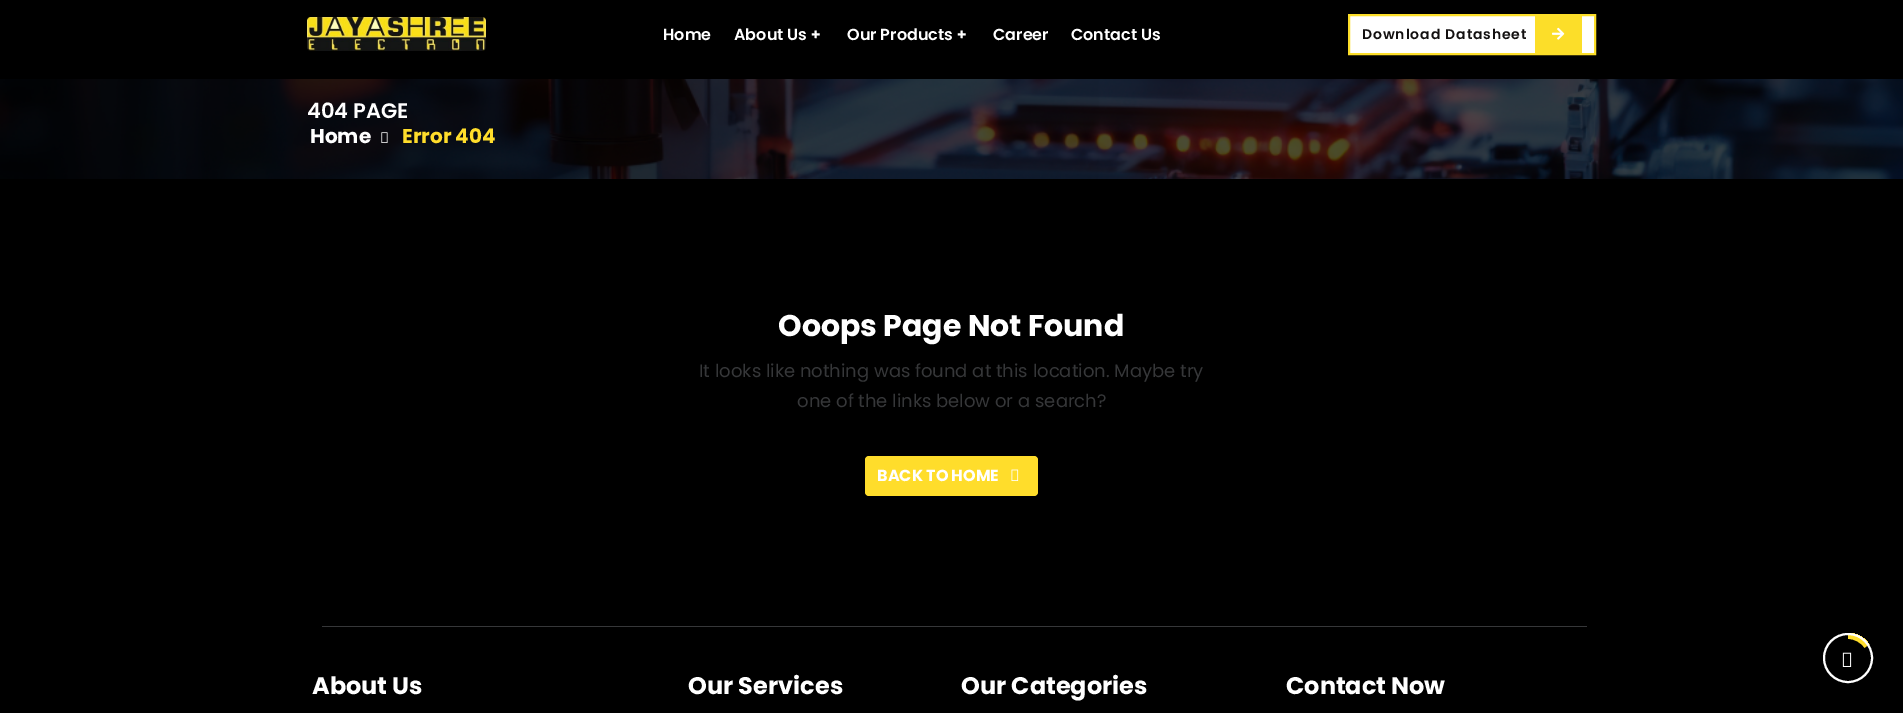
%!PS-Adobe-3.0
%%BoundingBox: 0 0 1903 713
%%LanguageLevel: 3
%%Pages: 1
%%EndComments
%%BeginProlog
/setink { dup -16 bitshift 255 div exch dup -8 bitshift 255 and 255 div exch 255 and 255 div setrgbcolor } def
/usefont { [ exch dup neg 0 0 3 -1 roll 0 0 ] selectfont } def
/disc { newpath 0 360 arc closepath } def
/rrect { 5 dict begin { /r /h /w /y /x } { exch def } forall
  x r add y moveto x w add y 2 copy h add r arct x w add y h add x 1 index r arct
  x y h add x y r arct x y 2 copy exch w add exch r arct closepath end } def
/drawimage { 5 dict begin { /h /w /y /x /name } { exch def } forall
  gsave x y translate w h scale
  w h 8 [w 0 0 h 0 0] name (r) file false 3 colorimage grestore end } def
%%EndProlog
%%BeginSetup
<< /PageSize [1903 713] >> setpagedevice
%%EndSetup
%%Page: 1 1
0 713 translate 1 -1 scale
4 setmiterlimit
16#000000 setink
0 0 1903 713 rectfill
(img1.raw) 307 17 179 34 drawimage
/Poppins-SemiBold 16 usefont
16#FFFFFF setink
663 40 moveto (Home) show
734 40 moveto (About Us) show
/NotoSans-Black 16 usefont
811 40 moveto (+) show
/Poppins-SemiBold 16 usefont
847 40 moveto (Our Products) show
/NotoSans-Black 16 usefont
957 40 moveto (+) show
/Poppins-SemiBold 16 usefont
993 40 moveto (Career) show
1071 40 moveto (Contact Us) show
1349 15 moveto 1595 15 lineto 1595 54 lineto 1349 54 lineto closepath gsave fill grestore
16#FCDE29 setink
2 setlinewidth
stroke
/Poppins-SemiBold 14 usefont
16#131010 setink
1362 39 moveto 0.9 0 (Download Datasheet) ashow
16#FCDE29 setink
1535 16 47 37 rectfill
(img2.raw) 1552 27 13 13 drawimage
(img3.raw) 0 79 1903 100 drawimage
/Poppins-SemiBold 21 usefont
16#FFFFFF setink
307 118 moveto (404 PAGE) show
/Poppins-Bold 20 usefont
310 143 moveto (Home) show
(img4.raw) 381 132 7 11 drawimage
16#FFDD2B setink
402 143 moveto (Error 404) show
/Poppins-Bold 30 usefont
16#FFFFFF setink
778 336 moveto (Ooops Page Not Found) show
/Poppins-Regular 18 usefont
16#363739 setink
699 377 moveto (It looks like nothing was found at this location. Maybe try) show
797 407 moveto (one of the links below or a search?) show
16#FFDD2B setink
865 456 173 40 4 rrect fill
/Poppins-Bold 16 usefont
16#FFFFFF setink
877 481 moveto (BACK TO HOME) show
(img5.raw) 1011 469 8 12 drawimage
gsave
1823 633 50 50 25 rrect clip newpath
16#FFDD2B setink
9.8 setlinewidth
1848 634 moveto 1856.5 634 1864 638.5 1868.5 645 curveto stroke
grestore
1848 658 24 disc stroke
(img6.raw) 1842 652 10 15 drawimage
16#363739 setink
322 626 1265 1 rectfill
/Poppins-Bold 24 usefont
16#FFFFFF setink
[
    [(About Us) 312 694]
    [(Our Services) 688 694]
    [(Our Categories) 961 694]
    [(Contact Now) 1286 694]
] { aload pop moveto show } forall
showpage
%%EOF
